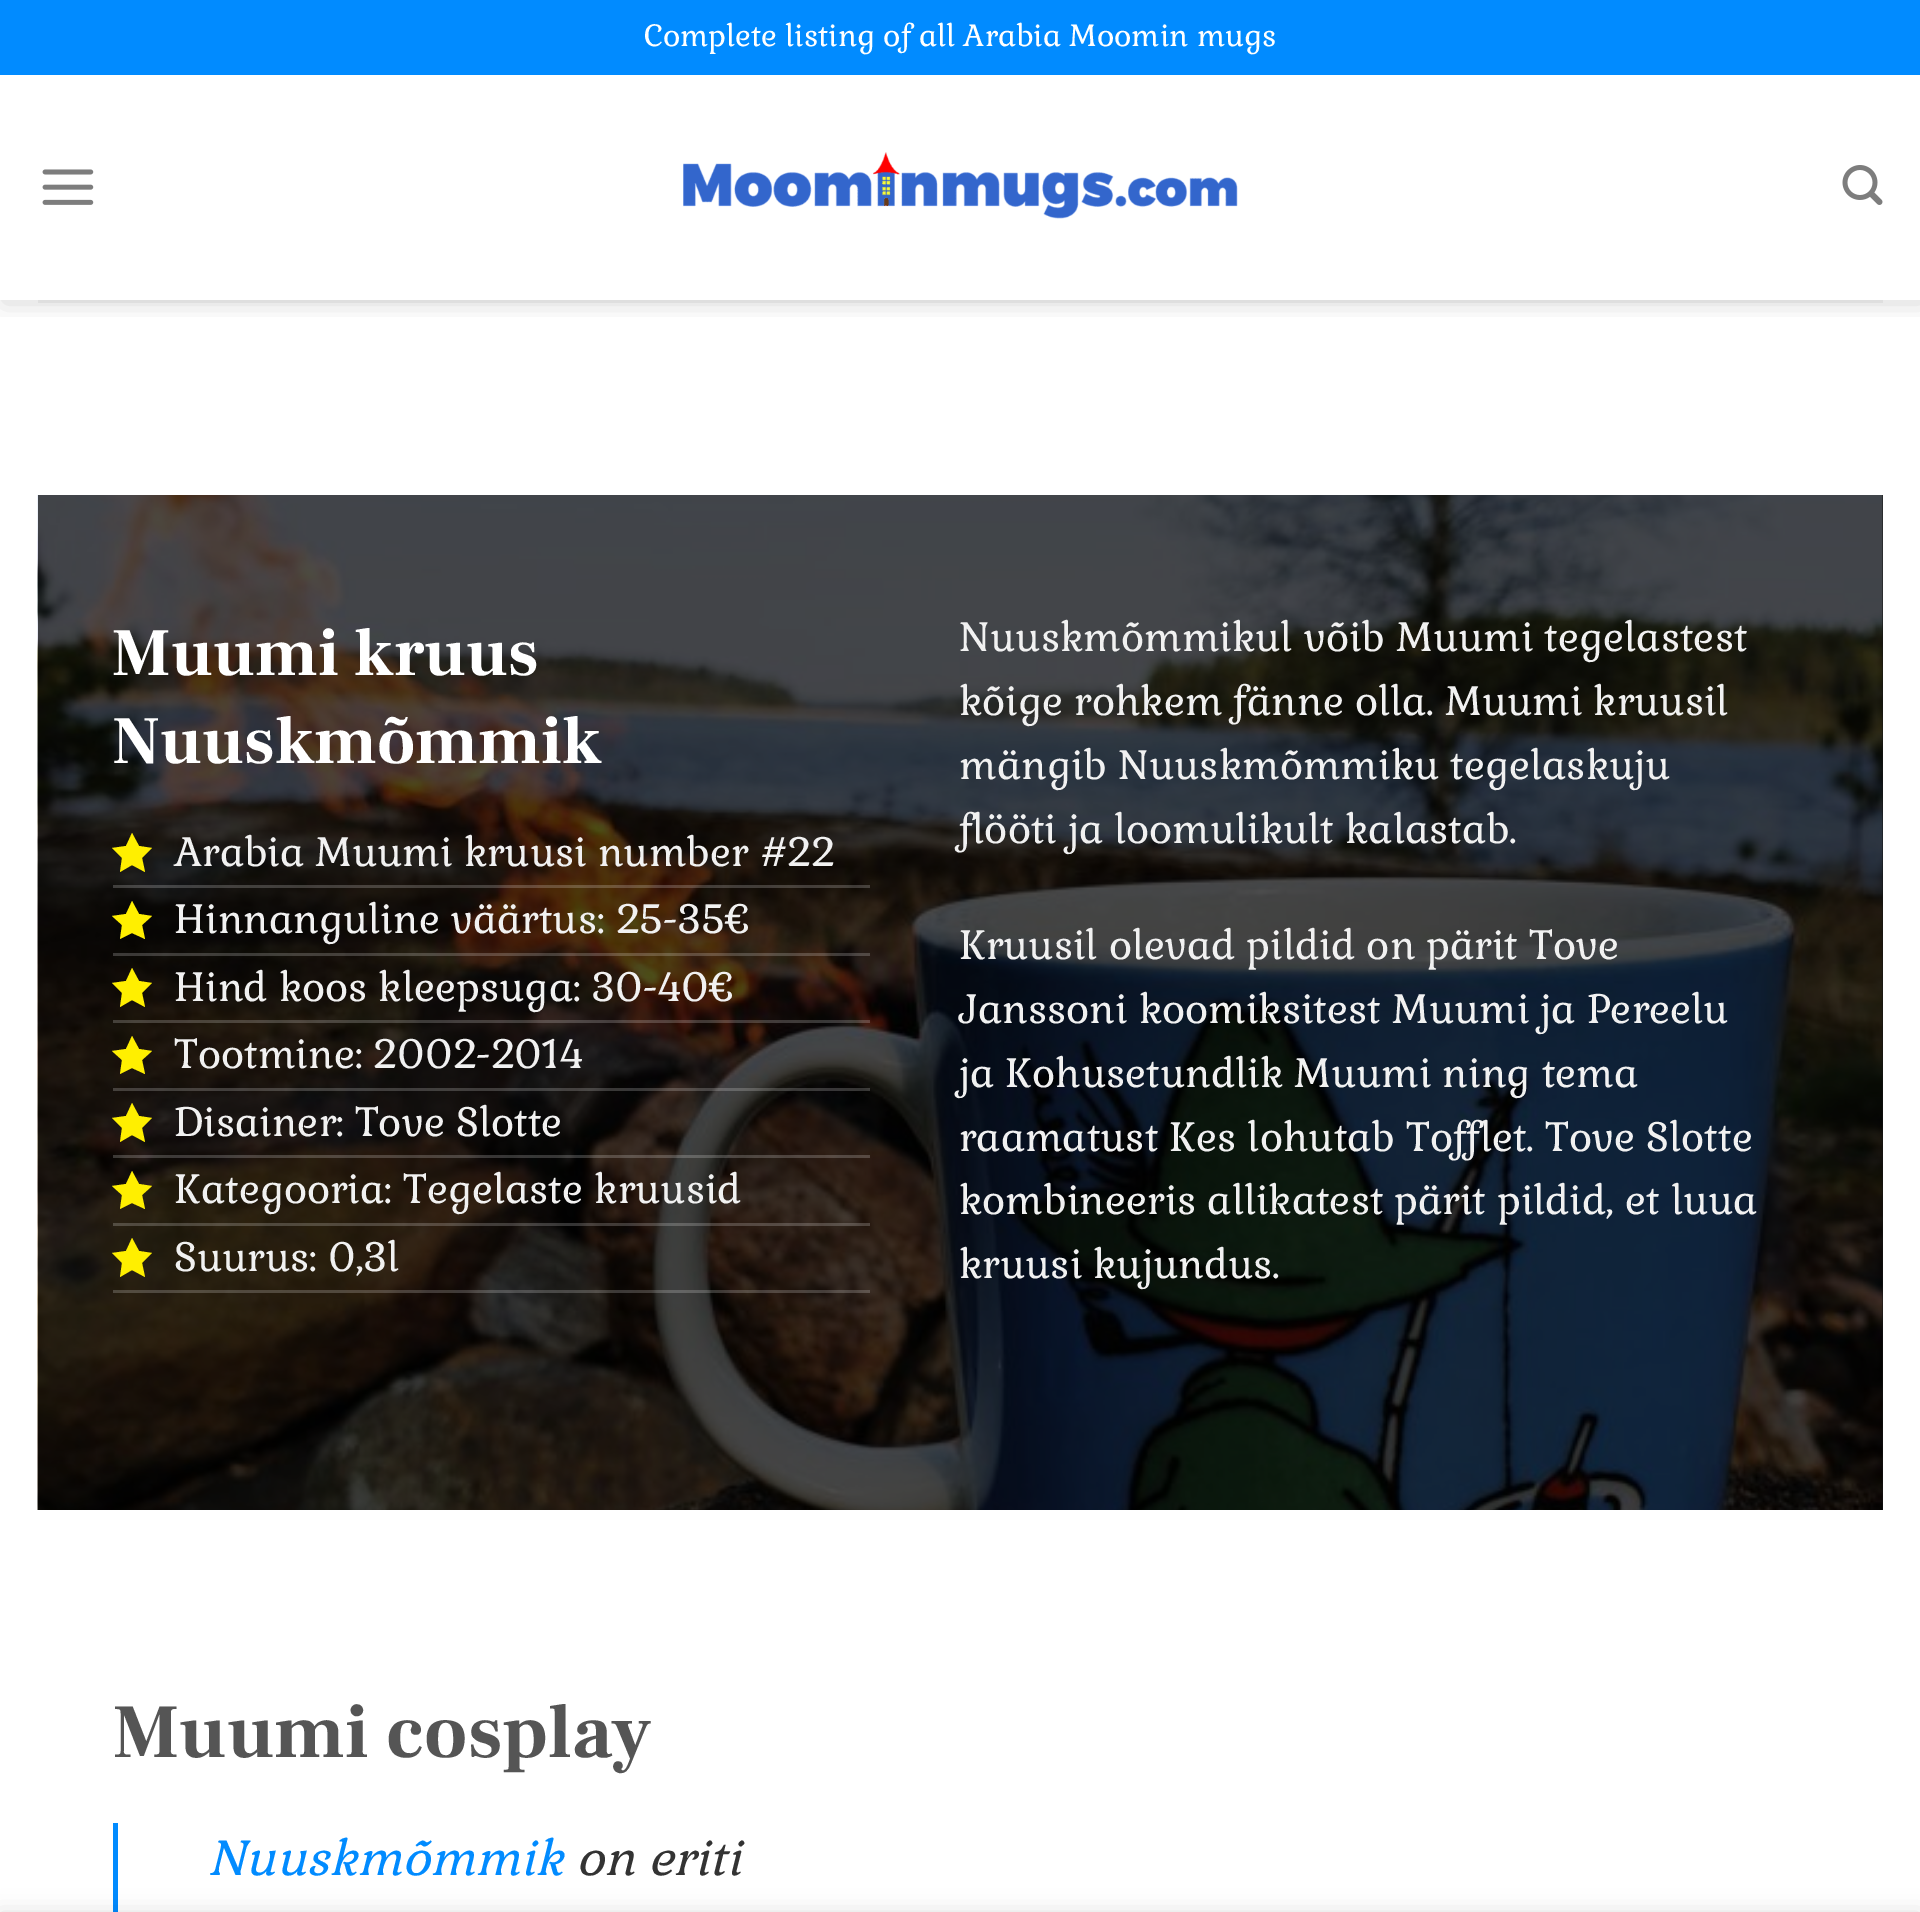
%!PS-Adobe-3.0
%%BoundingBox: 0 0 1920 1912
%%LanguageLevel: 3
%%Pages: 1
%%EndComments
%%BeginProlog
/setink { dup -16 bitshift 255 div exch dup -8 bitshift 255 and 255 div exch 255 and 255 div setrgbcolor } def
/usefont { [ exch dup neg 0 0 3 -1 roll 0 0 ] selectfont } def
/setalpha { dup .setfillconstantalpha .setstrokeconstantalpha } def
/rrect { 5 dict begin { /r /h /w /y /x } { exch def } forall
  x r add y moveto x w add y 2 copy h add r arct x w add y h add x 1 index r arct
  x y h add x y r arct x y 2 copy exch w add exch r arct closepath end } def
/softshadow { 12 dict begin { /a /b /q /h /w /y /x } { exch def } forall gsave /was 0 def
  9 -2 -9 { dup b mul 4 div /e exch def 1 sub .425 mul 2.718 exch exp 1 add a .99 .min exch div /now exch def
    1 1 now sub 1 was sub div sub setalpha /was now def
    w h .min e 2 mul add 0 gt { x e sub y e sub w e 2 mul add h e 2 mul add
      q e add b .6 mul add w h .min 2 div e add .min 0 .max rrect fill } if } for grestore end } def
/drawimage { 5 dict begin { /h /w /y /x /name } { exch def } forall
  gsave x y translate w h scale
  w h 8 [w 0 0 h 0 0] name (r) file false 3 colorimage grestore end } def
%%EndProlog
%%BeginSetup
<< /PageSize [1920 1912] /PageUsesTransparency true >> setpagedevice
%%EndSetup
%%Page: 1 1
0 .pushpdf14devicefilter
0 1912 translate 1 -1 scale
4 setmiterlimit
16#FFFFFF setink
0 0 1920 1912 rectfill
gsave
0 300 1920 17 rectclip
16#000000 setink
3 3 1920 300 0 12.5 0.15 softshadow
grestore
16#018BFF setink
0 0 1920 75 rectfill
/Gabriela-Regular 30 usefont
16#FFFFFF setink
644 46 moveto (Complete listing of all Arabia Moomin mugs) show
(img1.raw) 42 169 52 36 drawimage
(img2.raw) 683 152 555 67 drawimage
(img3.raw) 1842 165 41 40 drawimage
16#DFDFDF setink
38 300 1845 3 rectfill
16#131313 setink
1882 495 1 1015 rectfill
(img4.raw) 37 495 1846 1015 drawimage
/FrankRuhlLibre-Bold 68 usefont
16#FFFFFF setink
112 675 moveto (Muumi kruus) show
112 763 moveto (Nuuskmõmmik) show
0.2 setalpha
113 885 757 3 rectfill
1 setalpha
16#FFEF00 setink
152 848 moveto 139 846 lineto 132 833 lineto 126 846 lineto 112 848 lineto 122 858 lineto 120 872 lineto 132 865 lineto 145 872 lineto 142 858 lineto closepath fill
/Gabriela-Regular 40 usefont
16#F1F1F1 setink
174 866 moveto (Arabia Muumi kruusi number #22) show
0.2 setalpha
16#FFFFFF setink
113 953 757 3 rectfill
1 setalpha
16#FFEF00 setink
152 916 moveto 139 914 lineto 132 901 lineto 126 914 lineto 112 916 lineto 122 925 lineto 120 939 lineto 132 933 lineto 145 939 lineto 142 925 lineto closepath fill
16#F1F1F1 setink
174 933 moveto (Hinnanguline väärtus: 25-35€) show
0.2 setalpha
16#FFFFFF setink
113 1020 757 3 rectfill
1 setalpha
16#FFEF00 setink
152 983 moveto 139 981 lineto 132 968 lineto 126 981 lineto 112 983 lineto 122 993 lineto 120 1007 lineto 132 1000 lineto 145 1007 lineto 142 993 lineto closepath fill
16#F1F1F1 setink
174 1001 moveto (Hind koos kleepsuga: 30-40€) show
0.2 setalpha
16#FFFFFF setink
113 1088 757 3 rectfill
1 setalpha
16#FFEF00 setink
152 1051 moveto 139 1049 lineto 132 1036 lineto 126 1049 lineto 112 1051 lineto 122 1060 lineto 120 1074 lineto 132 1068 lineto 145 1074 lineto 142 1060 lineto closepath fill
16#F1F1F1 setink
174 1068 moveto (Tootmine: 2002-2014) show
0.2 setalpha
16#FFFFFF setink
113 1155 757 3 rectfill
1 setalpha
16#FFEF00 setink
152 1118 moveto 139 1116 lineto 132 1103 lineto 126 1116 lineto 112 1118 lineto 122 1128 lineto 120 1142 lineto 132 1135 lineto 145 1142 lineto 142 1128 lineto closepath fill
16#F1F1F1 setink
174 1136 moveto (Disainer: Tove Slotte) show
0.2 setalpha
16#FFFFFF setink
113 1223 757 3 rectfill
1 setalpha
16#FFEF00 setink
152 1186 moveto 139 1184 lineto 132 1171 lineto 126 1184 lineto 112 1186 lineto 122 1195 lineto 120 1209 lineto 132 1203 lineto 145 1209 lineto 142 1195 lineto closepath fill
16#F1F1F1 setink
174 1203 moveto (Kategooria: Tegelaste kruusid) show
0.2 setalpha
16#FFFFFF setink
113 1290 757 3 rectfill
1 setalpha
16#FFEF00 setink
152 1253 moveto 139 1251 lineto 132 1238 lineto 126 1251 lineto 112 1253 lineto 122 1263 lineto 120 1277 lineto 132 1270 lineto 145 1277 lineto 142 1263 lineto closepath fill
16#F1F1F1 setink
[
    [(Suurus: 0,3l) 174 1271]
    [(Nuuskmõmmikul võib Muumi tegelastest) 959 651]
    [(kõige rohkem fänne olla. Muumi kruusil) 959 715]
    [(mängib Nuuskmõmmiku tegelaskuju) 959 779]
    [(flööti ja loomulikult kalastab.) 959 843]
    [(Kruusil olevad pildid on pärit Tove) 959 959]
    [(Janssoni koomiksitest Muumi ja Pereelu) 959 1023]
    [(ja Kohusetundlik Muumi ning tema) 959 1087]
    [(raamatust Kes lohutab Tofflet. Tove Slotte) 959 1151]
    [(kombineeris allikatest pärit pildid, et luua) 959 1214]
    [(kruusi kujundus.) 959 1278]
] { aload pop moveto show } forall
/FrankRuhlLibre-Bold 76.75 usefont
16#555555 setink
113 1757 moveto (Muumi cosplay) show
16#018BFF setink
113 1823 5 89 rectfill
/Gabriela-Italic 48 usefont
208 1875 moveto (Nuuskmõmmik) show
16#333333 setink
576 1875 moveto (on eriti) show
16#000000 setink
0 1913 1920 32 0 11 0.14 softshadow
.poppdf14devicefilter showpage
%%EOF
